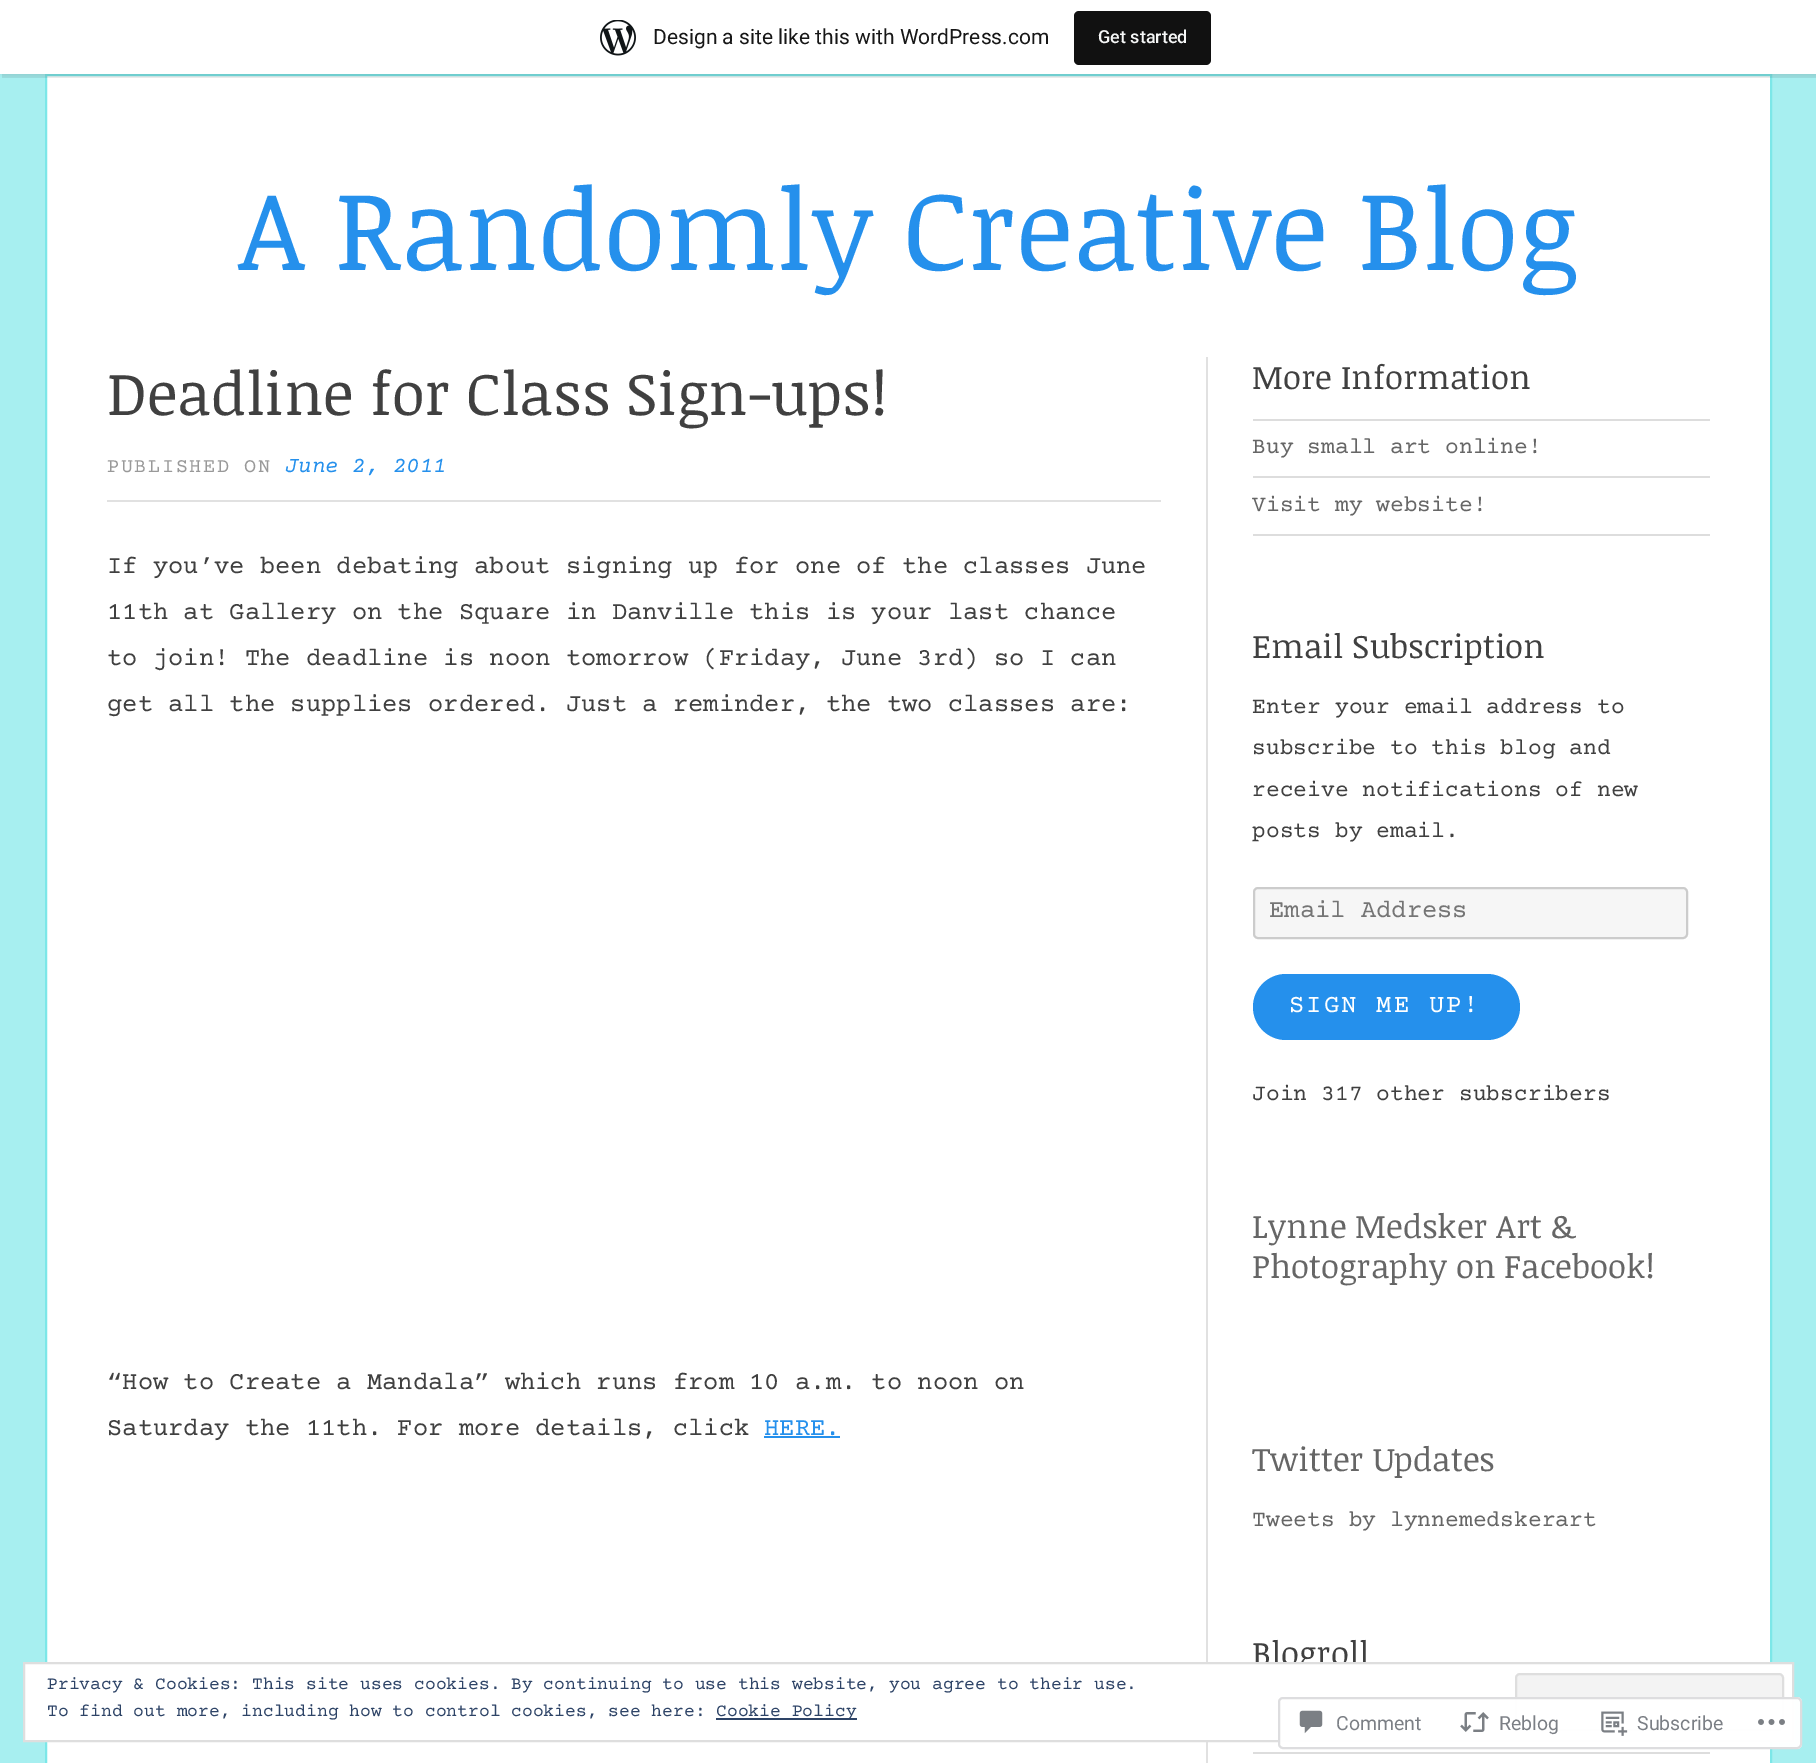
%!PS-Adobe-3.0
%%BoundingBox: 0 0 1816 1763
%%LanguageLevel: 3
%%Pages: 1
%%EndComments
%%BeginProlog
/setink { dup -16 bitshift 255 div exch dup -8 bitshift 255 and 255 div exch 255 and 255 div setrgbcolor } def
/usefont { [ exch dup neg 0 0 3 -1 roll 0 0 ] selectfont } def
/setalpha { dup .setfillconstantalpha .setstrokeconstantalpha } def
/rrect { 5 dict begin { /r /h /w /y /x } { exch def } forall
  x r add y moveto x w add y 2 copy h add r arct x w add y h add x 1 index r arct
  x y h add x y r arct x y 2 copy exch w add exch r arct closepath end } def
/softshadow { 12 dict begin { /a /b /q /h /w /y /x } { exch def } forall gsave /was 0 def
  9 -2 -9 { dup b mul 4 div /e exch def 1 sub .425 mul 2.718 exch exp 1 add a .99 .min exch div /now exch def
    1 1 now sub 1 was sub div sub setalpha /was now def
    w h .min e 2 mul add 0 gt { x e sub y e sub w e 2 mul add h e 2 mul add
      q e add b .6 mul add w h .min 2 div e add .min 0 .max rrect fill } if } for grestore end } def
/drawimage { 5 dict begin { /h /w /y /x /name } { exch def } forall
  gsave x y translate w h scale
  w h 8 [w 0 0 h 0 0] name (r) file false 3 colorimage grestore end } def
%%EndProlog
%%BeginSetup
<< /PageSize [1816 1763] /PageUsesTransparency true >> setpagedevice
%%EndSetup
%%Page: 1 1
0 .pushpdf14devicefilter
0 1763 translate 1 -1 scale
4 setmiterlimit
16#A7EFF0 setink
0 0 1816 1763 rectfill
16#FFFFFF setink
46 75 moveto 1771 75 lineto 1771 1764 lineto 46 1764 lineto closepath gsave fill grestore
16#7CE7E8 setink
2 setlinewidth
stroke
16#000000 setink
0 2 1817 73 0 1.5 0.05 softshadow
0.08 setalpha
2 74 moveto 2 78 lineto 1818 78 lineto 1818 5 lineto 1816 5 lineto 1816 74 lineto closepath fill
1 setalpha
16#FFFFFF setink
0 0 1816 74 rectfill
(img1.raw) 600 20 36 36 drawimage
/Roboto-Regular 21 usefont
16#171717 setink
653 44 moveto (Design a site like this with WordPress.com) show
16#111111 setink
1074 11 137 54 5 rrect fill
/Roboto-Medium 18 usefont
16#F6F7F7 setink
1098 43 moveto (Get started) show
/NoticiaText-Regular 112.5 usefont
16#2590EC setink
238 270 moveto (A Randomly Creative Blog) show
16#E1E1E1 setink
107 500 1054 2 rectfill
/NoticiaText-Regular 60 usefont
16#404040 setink
107 415 moveto (Deadline for Class Sign-ups!) show
/CourierPrime-Regular 20.25 usefont
16#999999 setink
107 472 moveto 1.6 0 (PUBLISHED ON) ashow
/CourierPrime-Italic 22.5 usefont
16#2590EC setink
285 472 moveto (June 2, 2011) show
/CourierPrime-Regular 25.5 usefont
16#404040 setink
[
    [(If you’ve been debating about signing up for one of the classes June) 107 573]
    [(11th at Gallery on the Square in Danville this is your last chance) 107 619]
    [(to join! The deadline is noon tomorrow \(Friday, June 3rd\) so I can) 107 665]
    [(get all the supplies ordered. Just a reminder, the two classes are:) 107 711]
    [(“How to Create a Mandala” which runs from 10 a.m. to noon on) 107 1389]
    [(Saturday the 11th. For more details, click) 107 1435]
] { aload pop moveto show } forall
16#2590EC setink
764 1435 moveto (HERE.) show
764 1436 76 2 rectfill
16#E1E1E1 setink
1206 357 2 1406 rectfill
/NoticiaText-Regular 33 usefont
16#404040 setink
1252 389 moveto (More Information) show
16#DDDDDD setink
1253 534 457 2 rectfill
1253 419 457 2 rectfill
/CourierPrime-Regular 23 usefont
16#666666 setink
1252 453 moveto (Buy small art online!) show
16#DDDDDD setink
1253 476 457 2 rectfill
16#666666 setink
1252 511 moveto (Visit my website!) show
/NoticiaText-Regular 33 usefont
16#404040 setink
1252 658 moveto (Email Subscription) show
/CourierPrime-Regular 23 usefont
[
    [(Enter your email address to) 1252 713]
    [(subscribe to this blog and) 1252 754]
    [(receive notifications of new) 1252 796]
    [(posts by email.) 1252 837]
] { aload pop moveto show } forall
16#F6F6F6 setink
1254 888 433 50 4 rrect gsave fill grestore
16#CCCCCC setink
stroke
/CourierPrime-Regular 25.5 usefont
16#757575 setink
1269 917 moveto (Email Address) show
16#2590EC setink
1253 974 267 66 33 rrect fill
/CourierPrime-Regular 25.75 usefont
16#FFFFFF setink
1289 1012 moveto 2 0 (SIGN ME UP!) ashow
/CourierPrime-Regular 23 usefont
16#404040 setink
1252 1100 moveto (Join 317 other subscribers) show
/NoticiaText-Regular 33 usefont
16#666666 setink
[
    [(Lynne Medsker Art &) 1252 1238]
    [(Photography on Facebook!) 1252 1278]
    [(Twitter Updates) 1252 1471]
] { aload pop moveto show } forall
/CourierPrime-Regular 23 usefont
1252 1526 moveto (Tweets by lynnemedskerart) show
/NoticiaText-Regular 33 usefont
16#404040 setink
1252 1665 moveto (Blogroll) show
16#DDDDDD setink
1253 1752 457 2 rectfill
16#FFFFFF setink
24 1663 moveto 1793 1663 lineto 1793 1741 lineto 24 1741 lineto closepath gsave fill grestore
16#DEDEDE setink
stroke
/CourierPrime-Regular 18 usefont
16#2E4467 setink
47 1689 moveto (Privacy & Cookies: This site uses cookies. By continuing to use this website, you agree to their use.) show
16#F3F3F3 setink
1516 1674 267 56 4 rrect gsave fill grestore
16#DEDEDE setink
stroke
16#2E4467 setink
47 1716 moveto (To find out more, including how to control cookies, see here:) show
716 1718 141 2 rectfill
716 1716 moveto (Cookie Policy) show
0.98 setalpha
16#FFFFFF setink
1278 1697 524 52 5 rrect fill
16#DCDCDE setink
1279 1698 522 50 4 rrect stroke
1 setalpha
(img2.raw) 1299 1710 24 24 drawimage
/Roboto-Regular 19.5 usefont
16#7B7F85 setink
1336 1730 moveto (Comment) show
(img3.raw) 1460 1712 29 20 drawimage
1499 1730 moveto (Reblog) show
(img4.raw) 1601 1711 27 25 drawimage
1637 1730 moveto (Subscribe) show
(img5.raw) 1758 1719 27 6 drawimage
.poppdf14devicefilter showpage
%%EOF
